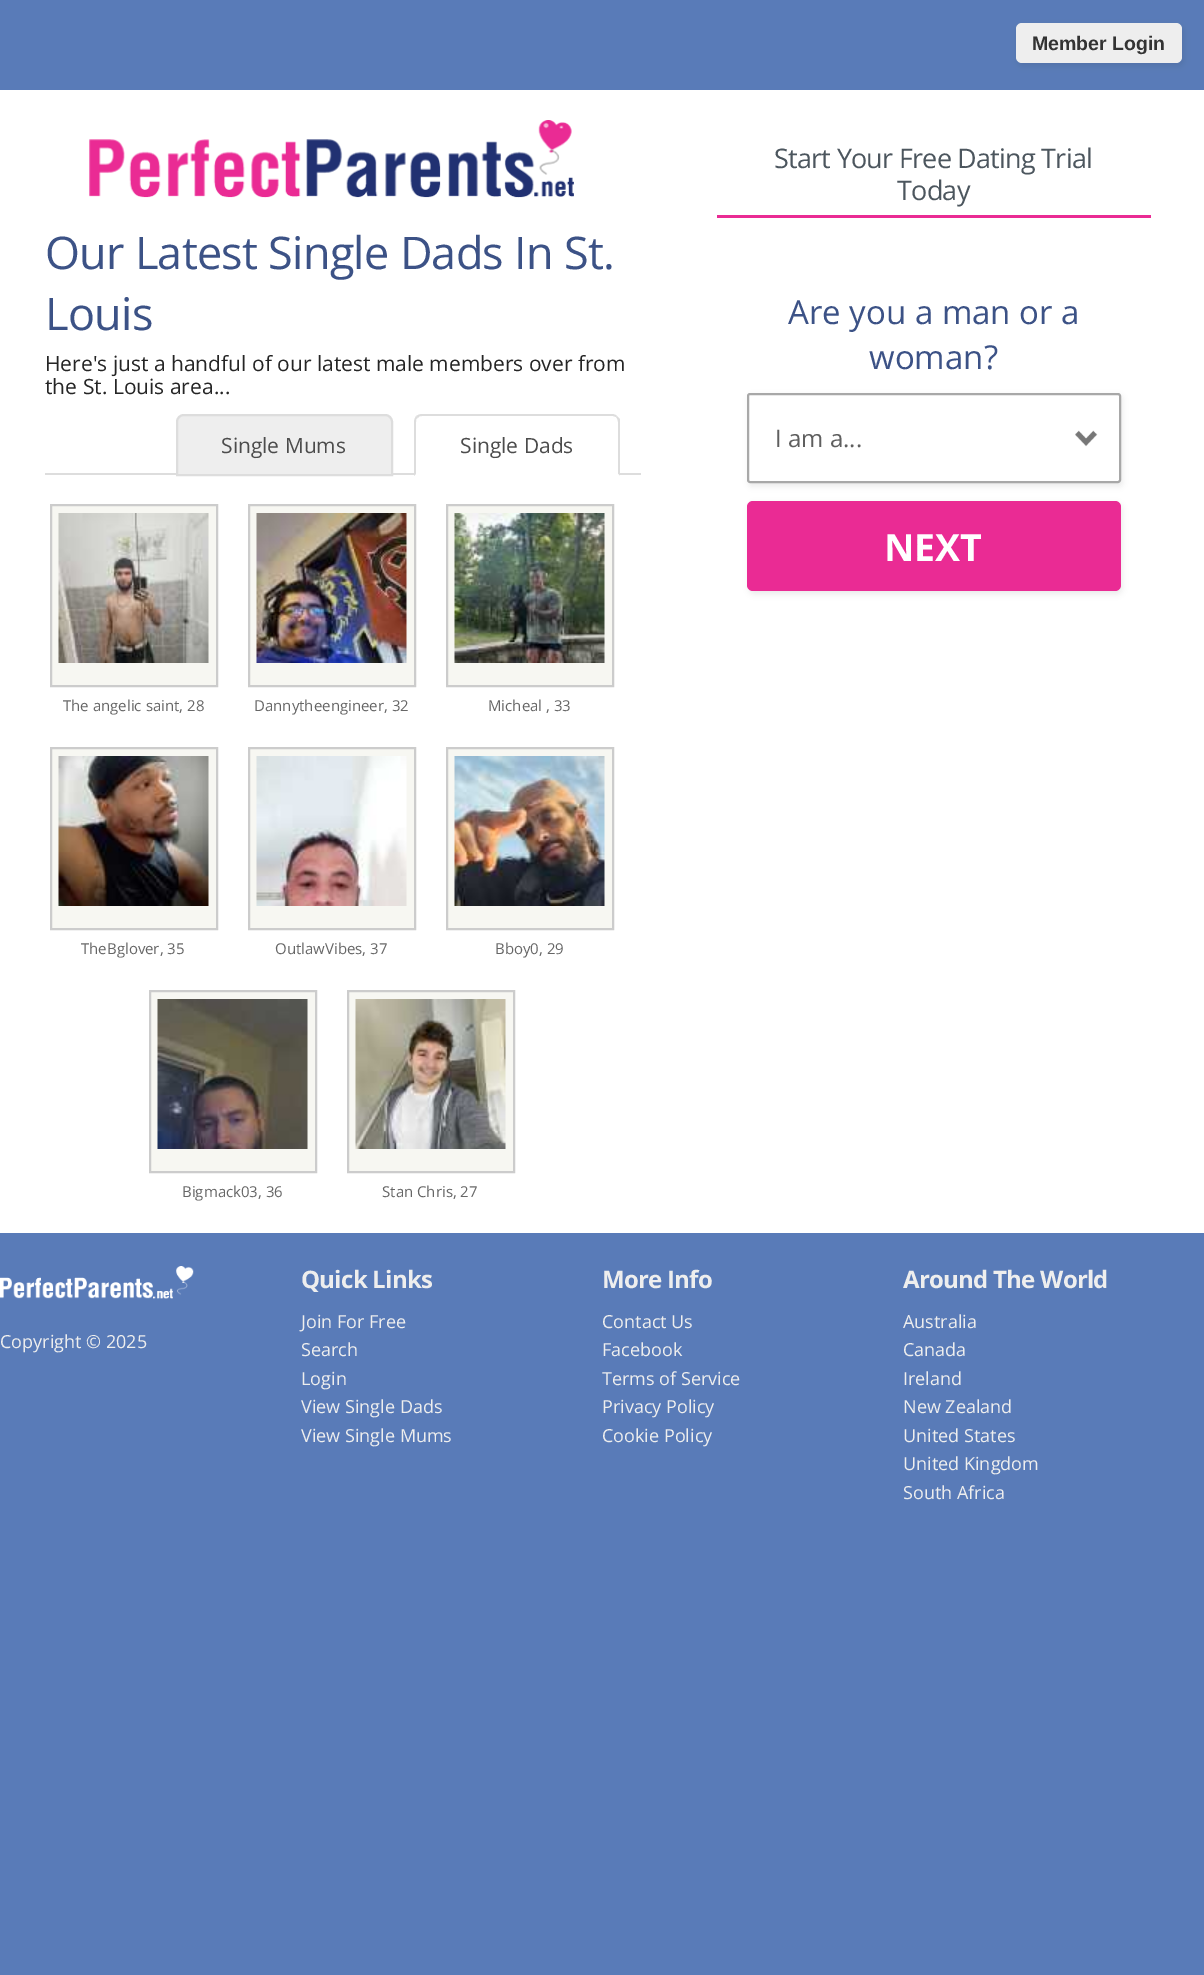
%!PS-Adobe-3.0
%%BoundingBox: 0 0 1204 1975
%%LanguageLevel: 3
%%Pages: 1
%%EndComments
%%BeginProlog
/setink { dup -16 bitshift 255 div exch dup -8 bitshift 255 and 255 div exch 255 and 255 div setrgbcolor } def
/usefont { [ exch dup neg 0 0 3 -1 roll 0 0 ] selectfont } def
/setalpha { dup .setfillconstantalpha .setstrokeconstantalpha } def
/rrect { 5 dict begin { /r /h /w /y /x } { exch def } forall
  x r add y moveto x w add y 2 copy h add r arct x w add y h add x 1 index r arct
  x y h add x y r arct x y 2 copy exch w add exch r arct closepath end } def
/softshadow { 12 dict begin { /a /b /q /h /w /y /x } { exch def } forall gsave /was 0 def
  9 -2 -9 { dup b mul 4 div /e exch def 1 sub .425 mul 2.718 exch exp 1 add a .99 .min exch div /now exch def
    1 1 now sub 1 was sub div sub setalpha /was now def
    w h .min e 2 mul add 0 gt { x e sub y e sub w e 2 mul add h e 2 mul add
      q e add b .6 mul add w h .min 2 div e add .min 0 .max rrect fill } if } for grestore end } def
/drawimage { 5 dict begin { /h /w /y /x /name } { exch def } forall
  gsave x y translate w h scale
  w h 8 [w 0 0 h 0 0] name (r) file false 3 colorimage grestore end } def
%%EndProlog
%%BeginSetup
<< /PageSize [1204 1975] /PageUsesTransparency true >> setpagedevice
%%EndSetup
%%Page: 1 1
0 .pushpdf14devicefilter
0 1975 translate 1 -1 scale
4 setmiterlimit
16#597BB8 setink
0 0 1204 1975 rectfill
16#000000 setink
1017 26 167 40 6 3 0.08 softshadow
16#EEEEEE setink
1016 23 166 40 6 rrect fill
/LiberationSans-Bold 19.5 usefont
16#333333 setink
1032 50 moveto (Member Login) show
16#FFFFFF setink
0 90 1204 1143 rectfill
(img1.raw) 89 120 485 78 drawimage
/OpenSans-Regular 45 usefont
16#3C5286 setink
45 269 moveto -0.75 0 (Our Latest Single Dads In St.) ashow
45 330 moveto -0.75 0 (Louis) ashow
/OpenSans-Regular 21 usefont
16#252525 setink
45 371 moveto (Here's just a handful of our latest male members over from) show
45 394 moveto (the St. Louis area...) show
16#DDDDDD setink
45 473 596 2 rectfill
16#EEEEEE setink
184 415 moveto 385 415 lineto 389 415 392 418 392 422 curveto 392 475 lineto 177 475 lineto 177 422 lineto 177 418 180 415 184 415 curveto closepath gsave fill grestore
16#DDDDDD setink
2 setlinewidth
stroke
16#4C4C4C setink
221 453 moveto (Single Mums) show
16#FFFFFF setink
422 414 moveto 612 414 lineto 616.5 414 620 417.5 620 422 curveto 620 476 lineto 414 476 lineto 414 422 lineto 414 417.5 417.5 414 422 414 curveto closepath fill
16#4C4C4C setink
460 453 moveto (Single Dads) show
16#DDDDDD setink
422 414 moveto 420 414 418 415 416 416 curveto 418 418 lineto 419 416 420 416 422 416 curveto 613 416 lineto 616 417 lineto 617 416 lineto 616 415 614 414 612 414 curveto closepath fill
617 416 moveto 620 419 lineto 620 476 lineto 618 474 lineto 618 422 lineto 618 420 617 418 616 417 curveto closepath fill
16#FFFFFF setink
620 476 moveto 618 474 lineto 416 474 lineto 414 476 lineto closepath fill
16#DDDDDD setink
414 476 moveto 416 474 lineto 416 422 lineto 416 420 416 418 418 418 curveto 416 416 lineto 415 418 414 420 414 422 curveto closepath fill
16#F7F7F2 setink
51 505 moveto 217 505 lineto 217 686 lineto 51 686 lineto closepath gsave fill grestore
16#CCCCCC setink
stroke
(img2.raw) 58 513 151 150 drawimage
/OpenSans-Regular 15 usefont
16#666666 setink
63 711 moveto (The angelic saint, 28) show
16#F7F7F2 setink
249 505 moveto 415 505 lineto 415 686 lineto 249 686 lineto closepath gsave fill grestore
16#CCCCCC setink
stroke
(img3.raw) 256 513 151 150 drawimage
16#666666 setink
254 711 moveto (Dannytheengineer, 32) show
16#F7F7F2 setink
447 505 moveto 613 505 lineto 613 686 lineto 447 686 lineto closepath gsave fill grestore
16#CCCCCC setink
stroke
(img4.raw) 454 513 151 150 drawimage
16#666666 setink
488 711 moveto (Micheal , 33) show
16#F7F7F2 setink
51 748 moveto 217 748 lineto 217 929 lineto 51 929 lineto closepath gsave fill grestore
16#CCCCCC setink
stroke
(img5.raw) 58 756 151 150 drawimage
16#666666 setink
81 954 moveto (TheBglover, 35) show
16#F7F7F2 setink
249 748 moveto 415 748 lineto 415 929 lineto 249 929 lineto closepath gsave fill grestore
16#CCCCCC setink
stroke
(img6.raw) 256 756 151 150 drawimage
16#666666 setink
275 954 moveto (OutlawVibes, 37) show
16#F7F7F2 setink
447 748 moveto 613 748 lineto 613 929 lineto 447 929 lineto closepath gsave fill grestore
16#CCCCCC setink
stroke
(img7.raw) 454 756 151 150 drawimage
16#666666 setink
495 954 moveto (Bboy0, 29) show
16#F7F7F2 setink
150 991 moveto 316 991 lineto 316 1172 lineto 150 1172 lineto closepath gsave fill grestore
16#CCCCCC setink
stroke
(img8.raw) 157 999 151 150 drawimage
16#666666 setink
182 1197 moveto (Bigmack03, 36) show
16#F7F7F2 setink
348 991 moveto 514 991 lineto 514 1172 lineto 348 1172 lineto closepath gsave fill grestore
16#CCCCCC setink
stroke
(img9.raw) 355 999 151 150 drawimage
16#666666 setink
382 1197 moveto (Stan Chris, 27) show
16#EA2B94 setink
717 215 434 3 rectfill
/OpenSans-Regular 27 usefont
16#4C565E setink
774 168 moveto -0.75 0 (Start Your Free Dating Trial) ashow
897 200 moveto -0.75 0 (Today) ashow
/OpenSans-Regular 33 usefont
16#3C5286 setink
788 324 moveto (Are you a man or a) show
869 369 moveto (woman?) show
16#000000 setink
749 396 373 90 3 3 0.08 softshadow
16#FFFFFF setink
747 393 374 90 3 rrect fill
(img10.raw) 1075 430 23 17 drawimage
16#A8A8A8 setink
748 394 372 88 2 rrect stroke
/OpenSans-Regular 24 usefont
16#5F5F5F setink
775 447 moveto (I am a...) show
16#000000 setink
749 504 373 90 6 3 0.08 softshadow
16#EA2B94 setink
747 501 374 90 6 rrect fill
/OpenSans-Bold 37.5 usefont
16#FFFFFF setink
884 561 moveto (NEXT) show
(img11.raw) 0 1266 194 33 drawimage
/OpenSans-Regular 18 usefont
16#EEEEEE setink
0 1348 moveto (Copyright © 2025) show
/OpenSans-Bold 24 usefont
301 1288 moveto -0.75 0 (Quick Links) ashow
/OpenSans-Regular 18 usefont
[
    [(Join For Free) 301 1328]
    [(Search) 301 1356]
    [(Login) 301 1385]
    [(View Single Dads) 301 1413]
    [(View Single Mums) 301 1442]
] { aload pop moveto show } forall
/OpenSans-Bold 24 usefont
602 1288 moveto -0.75 0 (More Info) ashow
/OpenSans-Regular 18 usefont
[
    [(Contact Us) 602 1328]
    [(Facebook) 602 1356]
    [(Terms of Service) 602 1385]
    [(Privacy Policy) 602 1413]
    [(Cookie Policy) 602 1442]
] { aload pop moveto show } forall
/OpenSans-Bold 24 usefont
903 1288 moveto -0.75 0 (Around The World) ashow
/OpenSans-Regular 18 usefont
[
    [(Australia) 903 1328]
    [(Canada) 903 1356]
    [(Ireland) 903 1385]
    [(New Zealand) 903 1413]
    [(United States) 903 1442]
    [(United Kingdom) 903 1470]
    [(South Africa) 903 1499]
] { aload pop moveto show } forall
.poppdf14devicefilter showpage
%%EOF
